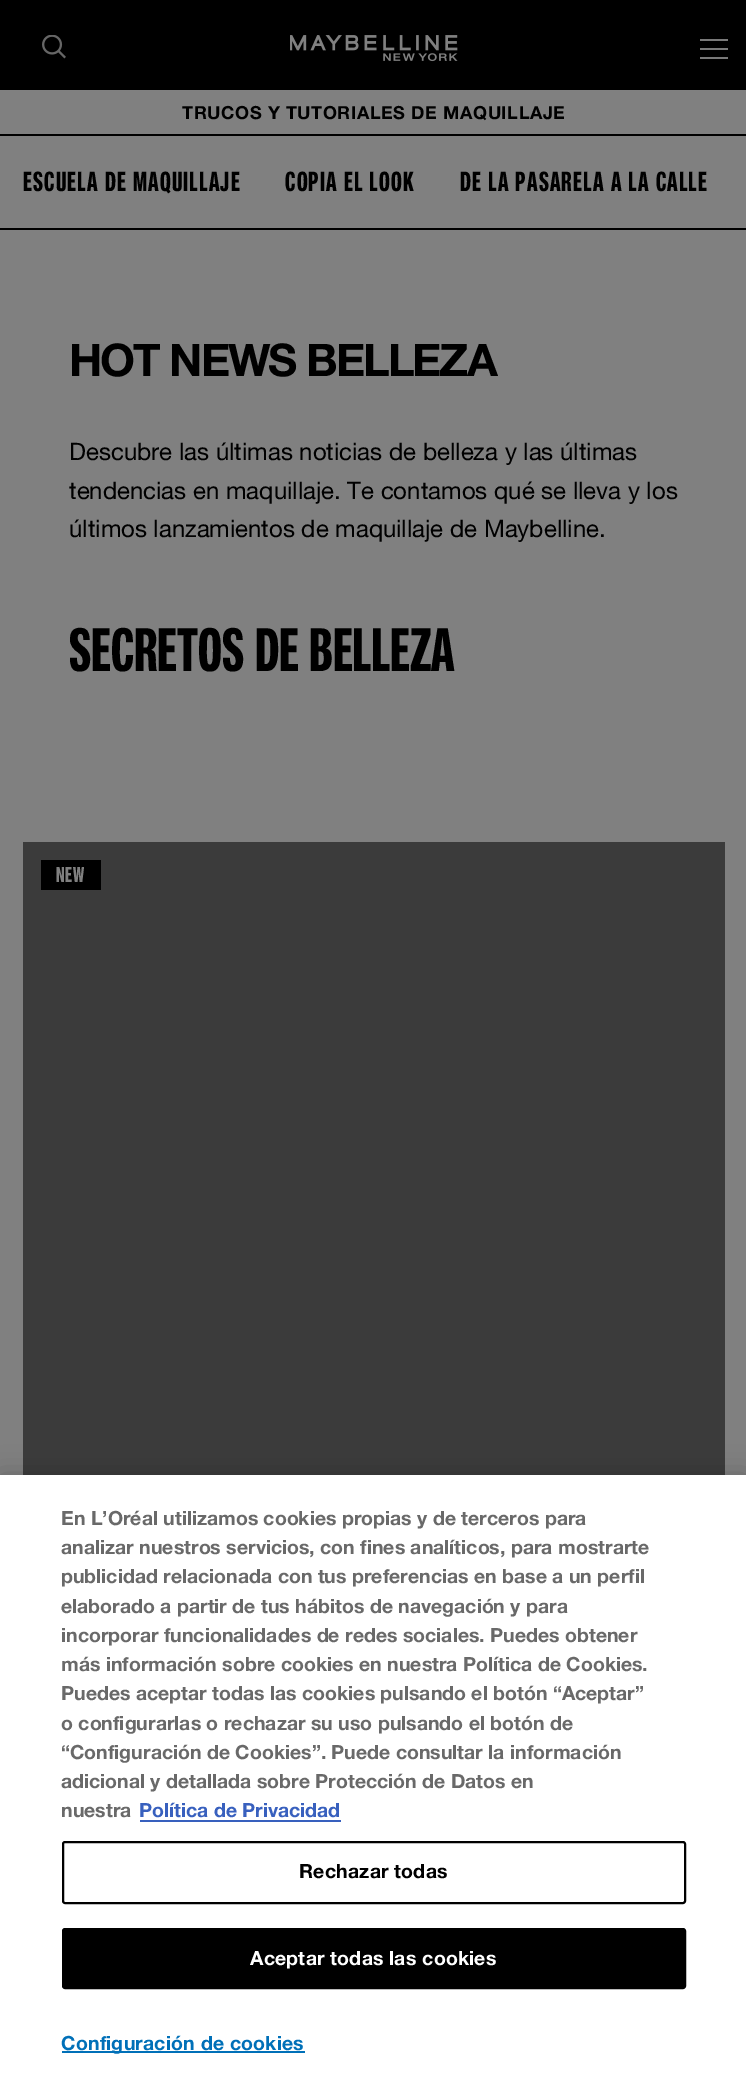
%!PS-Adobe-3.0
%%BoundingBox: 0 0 746 2096
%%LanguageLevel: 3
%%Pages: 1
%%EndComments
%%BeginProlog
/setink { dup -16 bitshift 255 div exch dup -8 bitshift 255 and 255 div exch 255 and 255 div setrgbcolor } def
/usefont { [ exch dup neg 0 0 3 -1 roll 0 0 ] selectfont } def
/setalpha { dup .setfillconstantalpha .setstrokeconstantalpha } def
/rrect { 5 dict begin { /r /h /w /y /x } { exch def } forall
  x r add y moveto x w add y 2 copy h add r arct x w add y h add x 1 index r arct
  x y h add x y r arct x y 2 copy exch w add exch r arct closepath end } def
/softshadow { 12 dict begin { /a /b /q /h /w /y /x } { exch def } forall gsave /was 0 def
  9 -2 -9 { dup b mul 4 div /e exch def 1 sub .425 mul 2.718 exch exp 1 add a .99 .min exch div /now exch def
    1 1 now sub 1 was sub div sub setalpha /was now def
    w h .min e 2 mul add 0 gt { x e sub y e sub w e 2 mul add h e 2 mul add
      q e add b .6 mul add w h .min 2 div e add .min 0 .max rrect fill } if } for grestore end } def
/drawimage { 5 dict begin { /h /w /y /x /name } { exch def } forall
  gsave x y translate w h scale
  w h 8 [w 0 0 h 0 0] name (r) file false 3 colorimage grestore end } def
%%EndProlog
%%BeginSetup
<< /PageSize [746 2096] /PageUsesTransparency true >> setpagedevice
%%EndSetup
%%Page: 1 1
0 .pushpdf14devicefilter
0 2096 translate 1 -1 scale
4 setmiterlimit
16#808080 setink
0 0 746 2096 rectfill
16#000000 setink
0 0 746 90 rectfill
(img1.raw) 42 35 24 24 drawimage
(img2.raw) 290 35 168 27 drawimage
[
    [700 39 28 2 16#797979]
    [700 48 28 2 16#797979]
    [700 57 28 2 16#797979]
    [0 134 746 2 16#000000]
] { aload pop setink rectfill } forall
/HelveticaNeue-Bold 18 usefont
182 119 moveto 0.6 0 (TRUCOS Y TUTORIALES DE MAQUILLAJE) ashow
0 228 746 2 rectfill
/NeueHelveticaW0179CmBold-Bold 27 usefont
23 191 moveto 1.2 0 (ESCUELA DE MAQUILLAJE) ashow
285 191 moveto 1.2 0 (COPIA EL LOOK) ashow
460 191 moveto 1.2 0 (DE LA PASARELA A LA CALLE) ashow
/HelveticaNeue-Bold 45 usefont
69 376 moveto -2 0 (HOT NEWS BELLEZA) ashow
/HelveticaNeue-Regular 24 usefont
[
    [(Descubre las últimas noticias de belleza y las últimas) 69 460]
    [(tendencias en maquillaje. Te contamos qué se lleva y los) 69 499]
    [(últimos lanzamientos de maquillaje de Maybelline.) 69 537]
] { aload pop moveto show } forall
/NeueHelveticaW0179CmBold-Bold 60 usefont
69 671 moveto (SECRETOS DE BELLEZA) show
16#3B3B3B setink
23 842 702 633 rectfill
16#000000 setink
41 860 60 30 rectfill
/NeueHelveticaW0179CmBold-Bold 21 usefont
16#808080 setink
56 882 moveto 0.5 0 (NEW) ashow
16#000000 setink
0 1475 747 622 0 13.5 0.2 softshadow
16#FFFFFF setink
0 1475 746 621 rectfill
/HelveticaNeue-Bold 19.5 usefont
16#696969 setink
[
    [(En L’Oréal utilizamos cookies propias y de terceros para) 61 1525]
    [(analizar nuestros servicios, con fines analíticos, para mostrarte) 61 1554]
    [(publicidad relacionada con tus preferencias en base a un perfil) 61 1583]
    [(elaborado a partir de tus hábitos de navegación y para) 61 1613]
    [(incorporar funcionalidades de redes sociales. Puedes obtener) 61 1642]
    [(más información sobre cookies en nuestra Política de Cookies.) 61 1671]
    [(Puedes aceptar todas las cookies pulsando el botón “Aceptar”) 61 1700]
    [(o configurarlas o rechazar su uso pulsando el botón de) 61 1730]
    [(“Configuración de Cookies”. Puede consultar la información) 61 1759]
    [(adicional y detallada sobre Protección de Datos en) 61 1788]
    [(nuestra) 61 1817]
] { aload pop moveto show } forall
16#3860BE setink
139 1817 moveto (Política de Privacidad) show
140 1820 201 2 rectfill
16#000000 setink
2 setlinewidth
63 1842 622 61 2 rrect stroke
299 1878 moveto 0.2 0 (Rechazar todas) ashow
63 1929 622 59 2 rrect gsave fill grestore
stroke
16#FFFFFF setink
250 1965 moveto 0.2 0 (Aceptar todas las cookies) ashow
16#0070B8 setink
62 2051 243 2 rectfill
61 2050 moveto 0.2 0 (Configuración de cookies) ashow
.poppdf14devicefilter showpage
%%EOF
